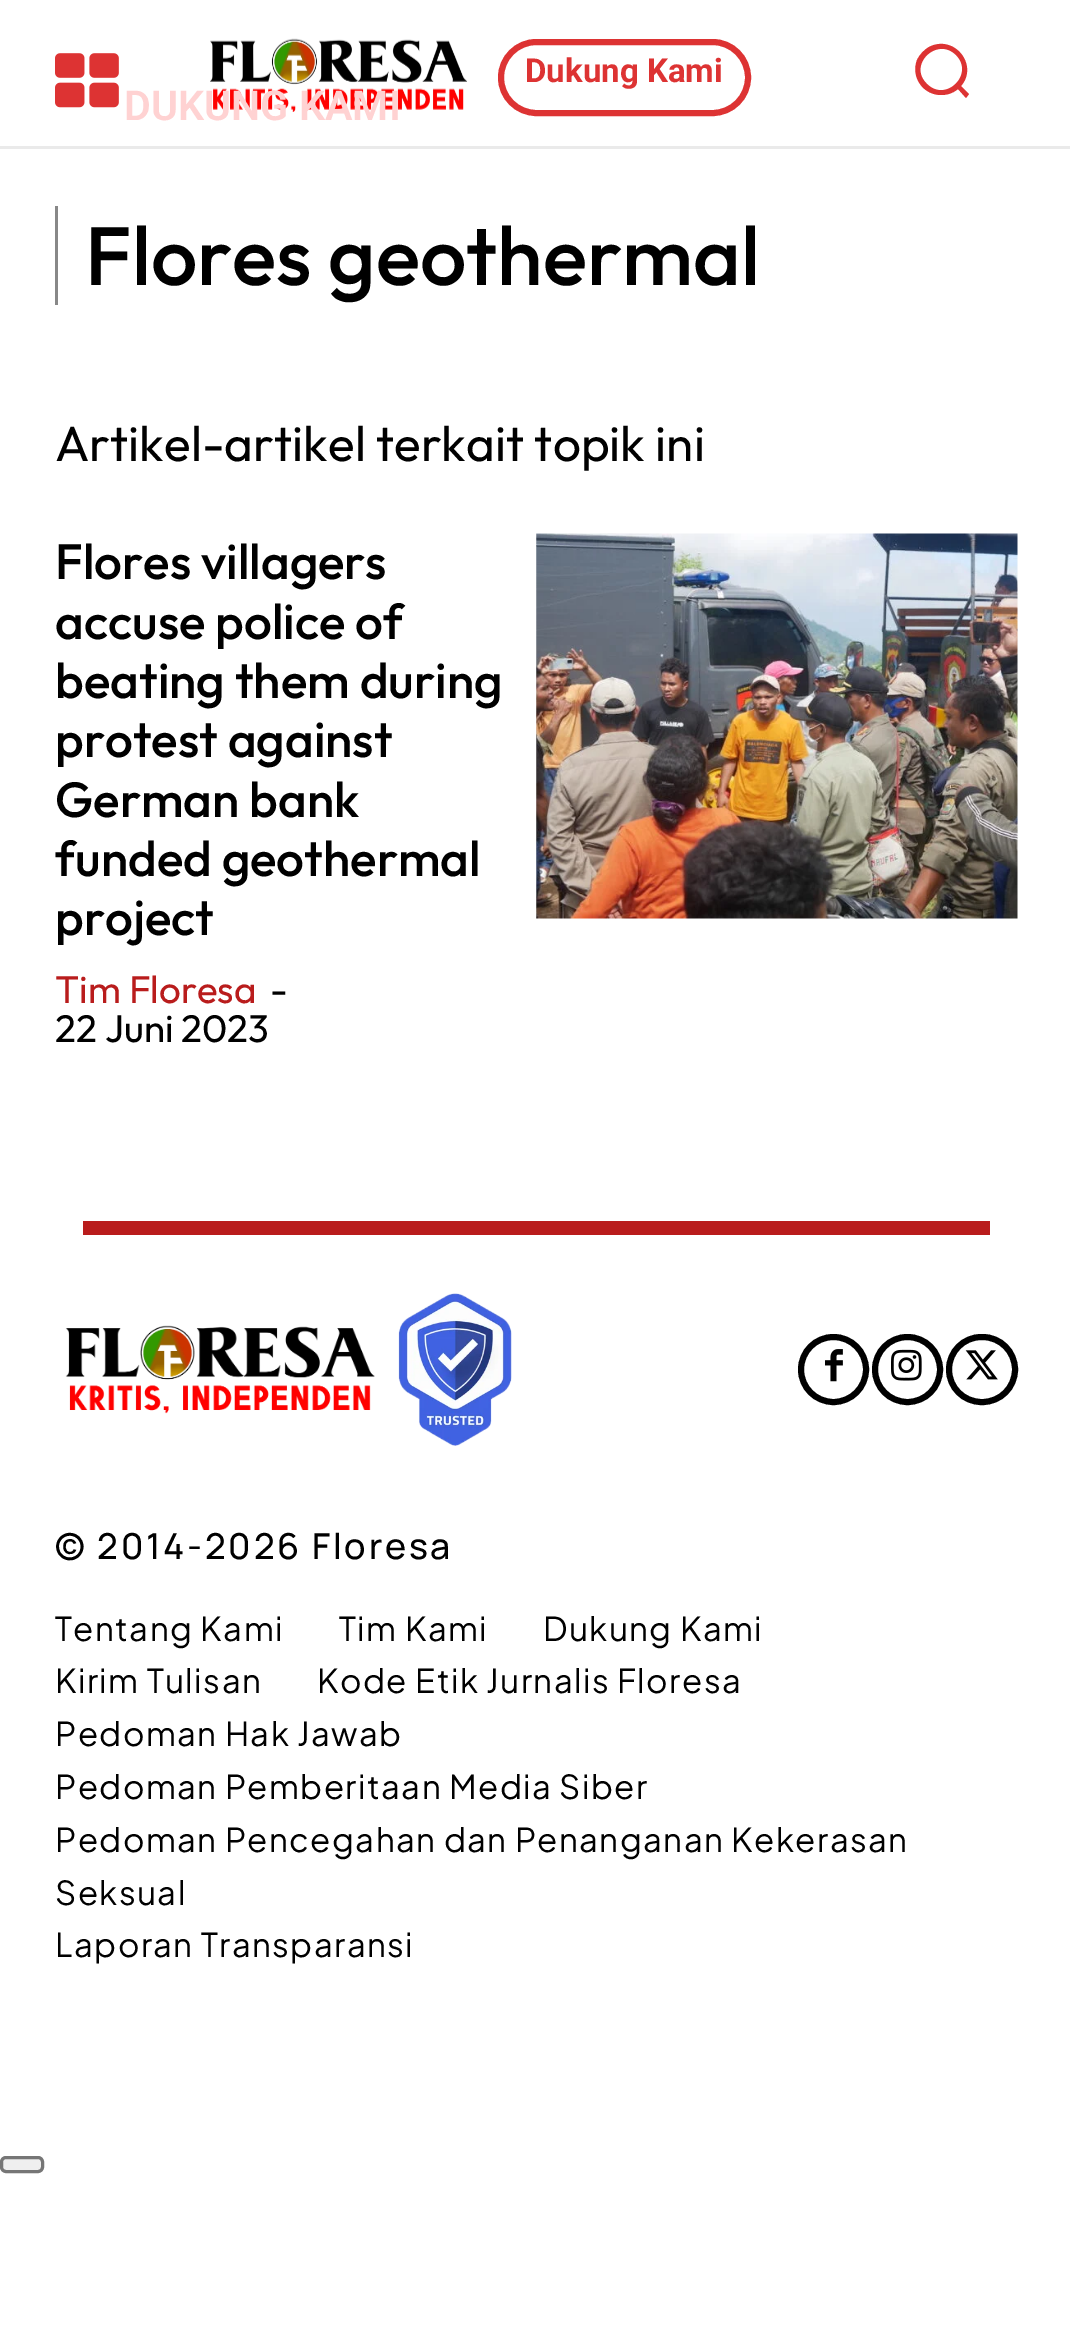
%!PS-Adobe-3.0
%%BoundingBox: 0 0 1070 2332
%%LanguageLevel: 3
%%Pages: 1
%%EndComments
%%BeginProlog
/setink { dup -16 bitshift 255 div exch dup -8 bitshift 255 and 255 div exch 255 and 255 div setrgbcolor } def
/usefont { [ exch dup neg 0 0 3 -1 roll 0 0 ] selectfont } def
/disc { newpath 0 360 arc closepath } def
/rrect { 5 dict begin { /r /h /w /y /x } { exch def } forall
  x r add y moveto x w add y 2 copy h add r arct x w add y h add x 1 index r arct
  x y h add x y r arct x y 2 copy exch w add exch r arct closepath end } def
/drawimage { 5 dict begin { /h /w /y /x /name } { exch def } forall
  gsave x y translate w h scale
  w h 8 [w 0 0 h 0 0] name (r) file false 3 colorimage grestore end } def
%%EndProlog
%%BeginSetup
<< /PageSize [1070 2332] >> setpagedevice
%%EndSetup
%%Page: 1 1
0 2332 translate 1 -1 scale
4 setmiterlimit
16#FFFFFF setink
0 0 1070 2332 rectfill
16#EAEAEA setink
0 146 1070 3 rectfill
(img1.raw) 55 53 64 55 drawimage
(img2.raw) 210 38 257 74 drawimage
16#DD3333 setink
6 setlinewidth
501 42 247 71 35.5 rrect stroke
/Roboto-Bold 33 usefont
525 82 moveto (Dukung Kami) show
969 94 moveto 961 86 lineto 979 65 954 34 929 47 curveto 924 50 920 54 917 60 curveto 914 68 915 77 920 84 curveto 928 96 946 99 958 89 curveto 966 98 lineto closepath 927 84 moveto 907 65 937 36 956 55 curveto 975 74 946 103 927 84 curveto closepath fill
16#888888 setink
55 206 3 99 rectfill
/Outfit-Medium 82.5 usefont
16#000000 setink
85 285 moveto (Flores geothermal) show
/Outfit-Regular 49.5 usefont
55 461 moveto (Artikel-artikel terkait topik ini) show
/Outfit-Medium 49.5 usefont
[
    [(Flores villagers) 55 579]
    [(accuse police of) 55 639]
    [(beating them during) 55 698]
    [(protest against) 55 757]
    [(German bank) 55 817]
    [(funded geothermal) 55 876]
    [(project) 55 935]
] { aload pop moveto show } forall
/Outfit-Regular 38.5 usefont
16#B91C1C setink
55 1003 moveto (Tim Floresa) show
16#000000 setink
270 1003 moveto (-) show
55 1042 moveto (22 Juni 2023) show
(img3.raw) 536 533 482 386 drawimage
16#B91C1C setink
83 1221 907 14 rectfill
(img4.raw) 65 1325 310 89 drawimage
(img5.raw) 398 1293 114 153 drawimage
16#000000 setink
833.5 1369.5 32.5 disc stroke
(img6.raw) 825 1349 18 33 drawimage
907.5 1369.5 32.5 disc stroke
(img7.raw) 891 1349 31 32 drawimage
949 1337 66 65 32.5 rrect stroke
(img8.raw) 965 1350 33 30 drawimage
/Manrope-Medium 35.75 usefont
55 1559 moveto 2.75 0 (© 2014-2026 Floresa) ashow
/PlusJakartaSans-Regular 33 usefont
55 1641 moveto 1.4 0 (Tentang Kami) ashow
339 1641 moveto 1.4 0 (Tim Kami) ashow
543 1641 moveto 1.4 0 (Dukung Kami) ashow
55 1693 moveto 1.4 0 (Kirim Tulisan) ashow
317 1693 moveto 1.4 0 (Kode Etik Jurnalis Floresa) ashow
55 1746 moveto 1.4 0 (Pedoman Hak Jawab) ashow
55 1799 moveto 1.4 0 (Pedoman Pemberitaan Media Siber) ashow
55 1852 moveto 1.4 0 (Pedoman Pencegahan dan Penanganan Kekerasan) ashow
55 1905 moveto 1.4 0 (Seksual) ashow
55 1957 moveto 1.4 0 (Laporan Transparansi) ashow
/Roboto-SemiBold 41.25 usefont
16#FFD2D2 setink
124 120 moveto (DUKUNG KAMI) show
16#EFEFEF setink
1.5 2157.5 41 14 4.5 rrect gsave fill grestore
16#767676 setink
3 setlinewidth
stroke
showpage
%%EOF
